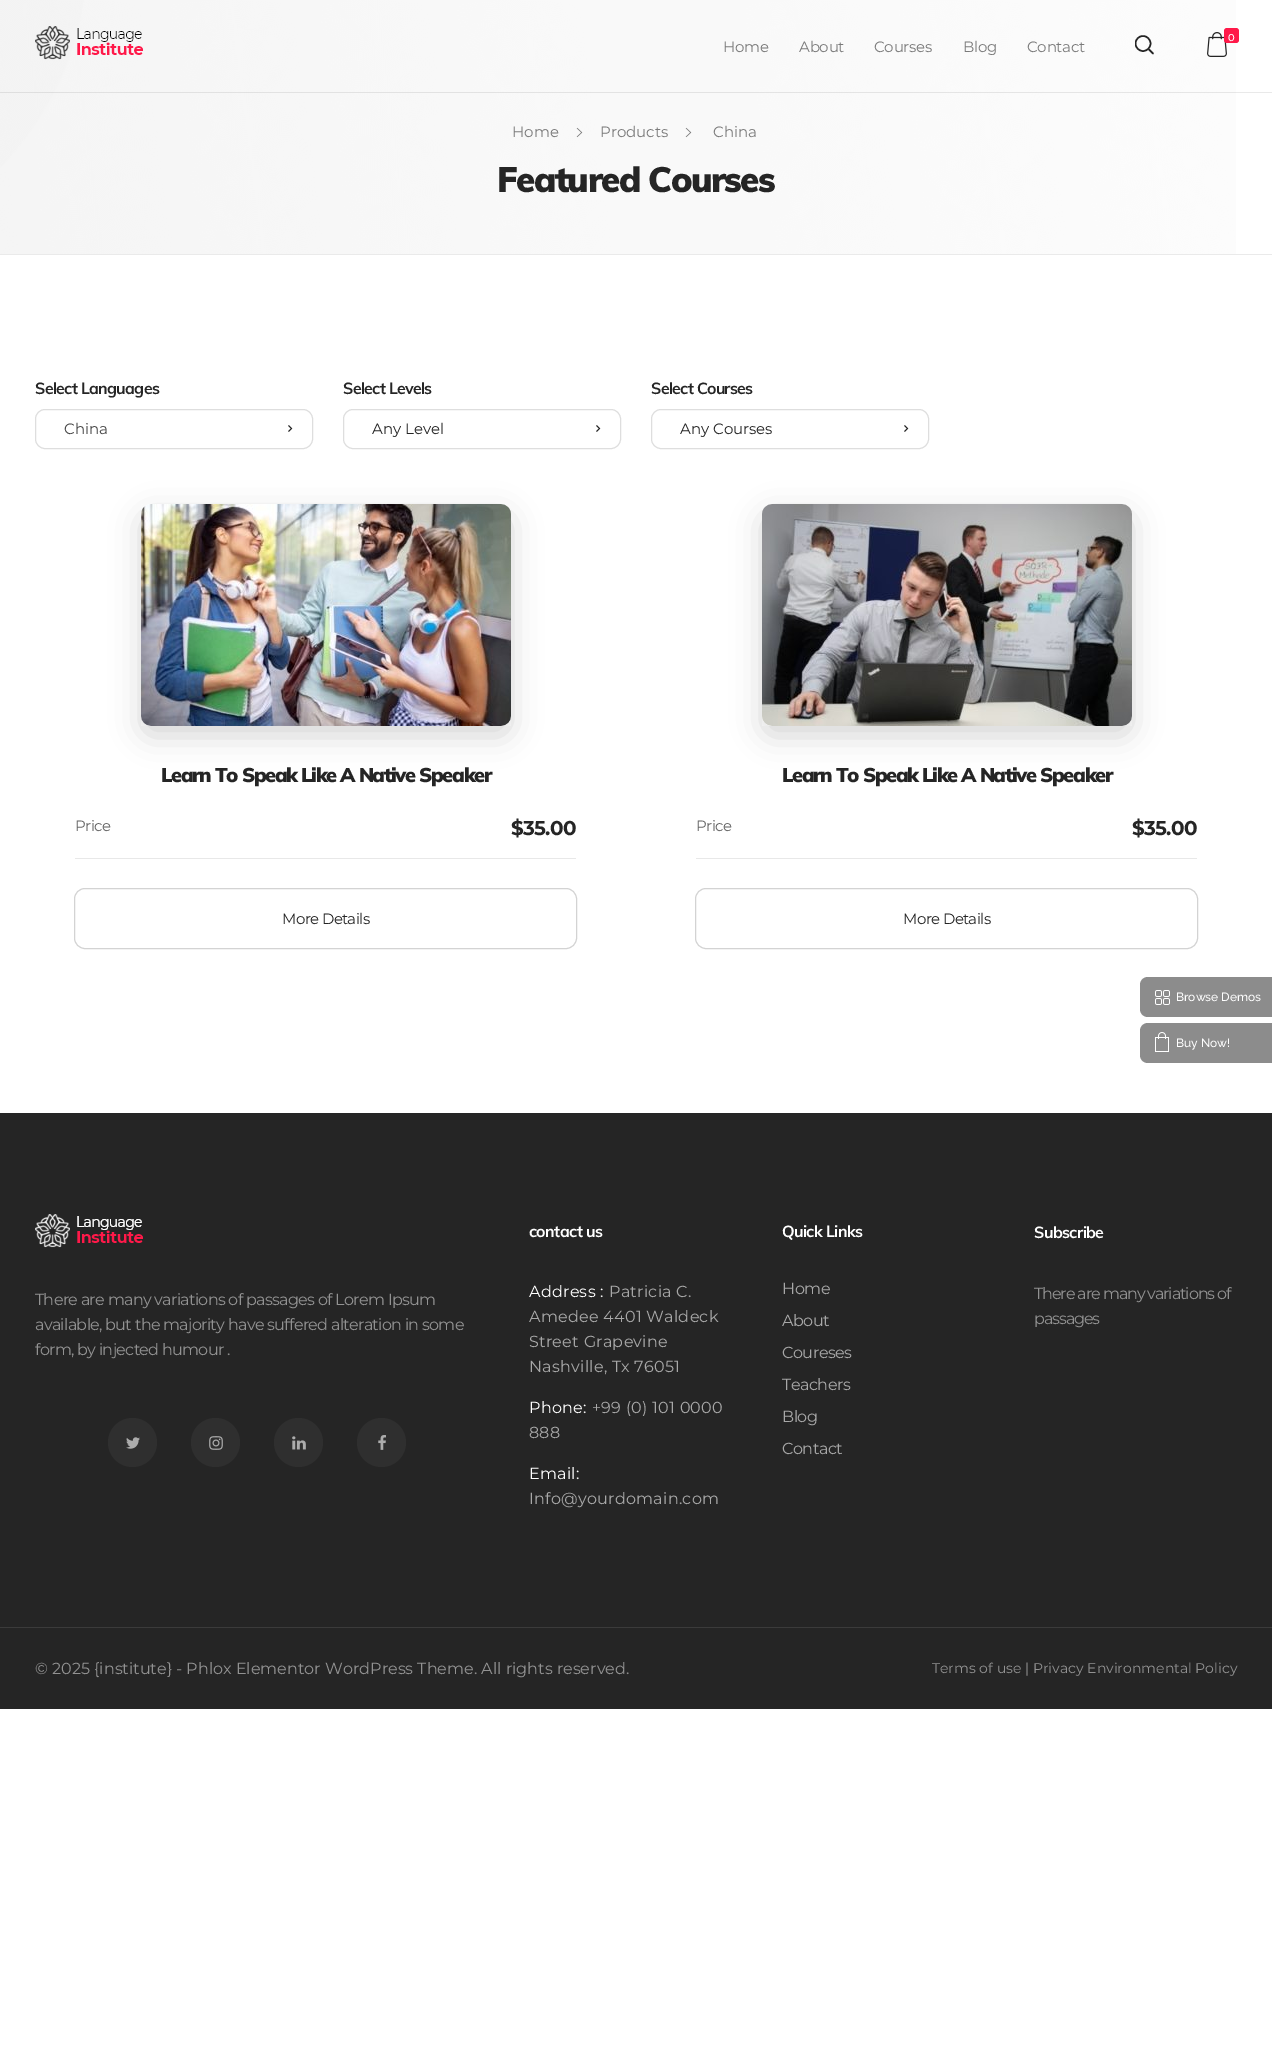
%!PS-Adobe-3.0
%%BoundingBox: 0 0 1272 2046
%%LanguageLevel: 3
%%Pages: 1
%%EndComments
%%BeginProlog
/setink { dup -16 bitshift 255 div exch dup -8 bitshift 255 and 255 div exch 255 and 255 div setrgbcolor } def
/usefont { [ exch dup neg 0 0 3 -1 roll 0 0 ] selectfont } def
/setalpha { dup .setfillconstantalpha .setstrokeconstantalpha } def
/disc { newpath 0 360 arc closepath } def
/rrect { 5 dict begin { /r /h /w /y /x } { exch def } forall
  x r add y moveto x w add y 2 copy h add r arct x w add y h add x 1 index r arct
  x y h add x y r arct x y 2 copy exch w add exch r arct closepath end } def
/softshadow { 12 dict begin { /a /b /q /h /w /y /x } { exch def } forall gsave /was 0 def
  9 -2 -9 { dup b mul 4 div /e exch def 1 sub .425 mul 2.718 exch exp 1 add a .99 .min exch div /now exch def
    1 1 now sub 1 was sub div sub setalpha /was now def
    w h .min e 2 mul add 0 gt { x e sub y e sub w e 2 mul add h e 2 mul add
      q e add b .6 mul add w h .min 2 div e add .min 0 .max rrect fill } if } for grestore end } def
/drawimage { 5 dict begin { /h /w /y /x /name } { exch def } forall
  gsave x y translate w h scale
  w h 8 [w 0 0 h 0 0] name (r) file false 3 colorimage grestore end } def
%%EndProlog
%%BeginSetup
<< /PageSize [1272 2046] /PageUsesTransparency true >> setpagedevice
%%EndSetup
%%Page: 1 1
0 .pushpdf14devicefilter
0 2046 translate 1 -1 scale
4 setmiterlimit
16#FFFFFF setink
0 0 1272 2046 rectfill
(img3.raw) 0 0 1236 254 drawimage
0.1 setalpha
16#252525 setink
0 92 1272 1 rectfill
1 setalpha
(img1.raw) 35 26 108 34 drawimage
/Montserrat-Regular 15 usefont
16#7A7A7A setink
723 52 moveto -0.25 0 (Home) ashow
799 52 moveto -0.25 0 (About) ashow
874 52 moveto -0.25 0 (Courses) ashow
963 52 moveto -0.25 0 (Blog) ashow
1027 52 moveto -0.25 0 (Contact) ashow
gsave
1135 35 19 20 rectclip
16#252525 setink
1.5 setlinewidth
1143 43.5 7.5 disc stroke
grestore
16#252525 setink
1.5 setlinewidth
1 setlinecap
1149 49.5 moveto 1153 53.5 lineto stroke
(img2.raw) 1207 32 20 25 drawimage
16#FF1949 setink
1224 28 15 15 3 rrect fill
/Montserrat-Medium 10 usefont
16#FFFFFF setink
1228 41 moveto (0) show
16#EAEAEA setink
0 254 1272 1 rectfill
/Montserrat-Regular 15 usefont
16#7A7A7A setink
512 137 moveto (Home) show
(img4.raw) 576 127 7 11 drawimage
600 137 moveto (Products) show
(img5.raw) 685 127 7 11 drawimage
713 137 moveto (China) show
/Muli-Black 35 usefont
16#252525 setink
497 192 moveto -1.6 0 (Featured Courses) ashow
/Muli-Bold 16 usefont
35 394 moveto -0.7 0 (Select Languages) ashow
16#DEDEDE setink
1 setlinewidth
0 setlinecap
35.5 409.5 277 39 9.5 rrect stroke
/Montserrat-Regular 15 usefont
16#444444 setink
64 434 moveto (China) show
16#252525 setink
0.9 setlinewidth
288.5 431.5 moveto 291.5 428.5 lineto 288.5 425.5 lineto stroke
/Muli-Bold 16 usefont
343 394 moveto -0.7 0 (Select Levels) ashow
16#DEDEDE setink
1 setlinewidth
343.5 409.5 277 39 9.5 rrect stroke
/Montserrat-Regular 15 usefont
16#252525 setink
372 434 moveto (Any Level) show
0.9 setlinewidth
596.5 431.5 moveto 599.5 428.5 lineto 596.5 425.5 lineto stroke
/Muli-Bold 16 usefont
651 394 moveto -0.7 0 (Select Courses) ashow
16#DEDEDE setink
1 setlinewidth
651.5 409.5 277 39 9.5 rrect stroke
/Montserrat-Regular 15 usefont
16#252525 setink
680 434 moveto (Any Courses) show
0.9 setlinewidth
904.5 431.5 moveto 907.5 428.5 lineto 904.5 425.5 lineto stroke
16#000000 setink
141 514 370 222 10 15 0.16 softshadow
(img6.raw) 141 504 370 222 drawimage
/Mulish-Black 20 usefont
16#252525 setink
161 782 moveto -1.4 0 (Learn To Speak Like A Native Speaker) ashow
16#E8E8E8 setink
75 858 501 1 rectfill
/Montserrat-Regular 15 usefont
16#666666 setink
75 831 moveto -0.5 0 (Price) ashow
/Montserrat-Bold 20 usefont
16#252525 setink
511 835 moveto -0.7 0 ($35.00) ashow
16#D3D3D3 setink
1 setlinewidth
74.5 888.5 502 60 10.5 rrect stroke
/Montserrat-Regular 15 usefont
16#252525 setink
282 924 moveto -0.6 0 (More Details) ashow
16#000000 setink
762 514 370 222 10 15 0.16 softshadow
(img7.raw) 762 504 370 222 drawimage
/Mulish-Black 20 usefont
16#252525 setink
782 782 moveto -1.4 0 (Learn To Speak Like A Native Speaker) ashow
16#E8E8E8 setink
696 858 501 1 rectfill
/Montserrat-Regular 15 usefont
16#666666 setink
696 831 moveto -0.5 0 (Price) ashow
/Montserrat-Bold 20 usefont
16#252525 setink
1132 835 moveto -0.7 0 ($35.00) ashow
16#D3D3D3 setink
695.5 888.5 502 60 10.5 rrect stroke
/Montserrat-Regular 15 usefont
16#252525 setink
903 924 moveto -0.6 0 (More Details) ashow
0 1113 1272 514 rectfill
(img8.raw) 35 1214 108 34 drawimage
/Montserrat-Regular 16 usefont
16#929292 setink
35 1305 moveto -0.7 0 (There are many variations of passages of Lorem Ipsum) ashow
35 1330 moveto -0.7 0 (available, but the majority have suffered alteration in some) ashow
35 1355 moveto -0.7 0 (form, by injected humour .) ashow
16#2F2F2F setink
132.5 1442.5 24.5 disc fill
(img9.raw) 126 1437 14 12 drawimage
215.5 1442.5 24.5 disc fill
(img10.raw) 209 1436 14 14 drawimage
298.5 1442.5 24.5 disc fill
(img11.raw) 292 1436 14 14 drawimage
381.5 1442.5 24.5 disc fill
(img12.raw) 378 1435 8 15 drawimage
/Muli-Bold 16 usefont
16#FFFFFF setink
529 1237 moveto -0.6 0 (contact us) ashow
/Montserrat-Regular 16 usefont
529 1297 moveto 0.25 0 (Address :) ashow
16#A8A8A8 setink
609 1297 moveto 0.25 0 (Patricia C.) ashow
529 1322 moveto 0.25 0 (Amedee 4401 Waldeck) ashow
529 1347 moveto 0.25 0 (Street Grapevine) ashow
529 1372 moveto 0.25 0 (Nashville, Tx 76051) ashow
16#FFFFFF setink
529 1413 moveto 0.25 0 (Phone:) ashow
16#A8A8A8 setink
592 1413 moveto 0.25 0 (+99 \(0\) 101 0000) ashow
529 1438 moveto 0.25 0 (888) ashow
16#FFFFFF setink
529 1479 moveto 0.25 0 (Email:) ashow
16#A8A8A8 setink
529 1504 moveto 0.25 0 (Info@yourdomain.com) ashow
/Muli-Bold 16 usefont
16#FFFFFF setink
782 1237 moveto -0.6 0 (Quick Links) ashow
/Montserrat-Regular 16 usefont
16#A8A8A8 setink
782 1294 moveto -0.5 0 (Home) ashow
782 1326 moveto -0.5 0 (About) ashow
782 1358 moveto -0.5 0 (Coureses) ashow
782 1390 moveto -0.5 0 (Teachers) ashow
782 1422 moveto -0.5 0 (Blog) ashow
782 1454 moveto -0.5 0 (Contact) ashow
/Muli-Bold 16 usefont
16#FFFFFF setink
1034 1238 moveto -0.6 0 (Subscribe) ashow
/Montserrat-Regular 16 usefont
16#929292 setink
1034 1299 moveto -1.1 0 (There are many variations of) ashow
1034 1324 moveto -1.1 0 (passages) ashow
16#252525 setink
0 1628 1272 81 rectfill
16#3B3B3B setink
0 1627 1272 1 rectfill
16#929292 setink
35 1674 moveto (© 2025 {institute} - Phlox Elementor WordPress Theme. All rights reserved.) show
/Montserrat-Regular 14 usefont
932 1673 moveto (Terms of use | Privacy Environmental Policy) show
16#8C8C8C setink
1148 977 moveto 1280 977 lineto 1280 1017 lineto 1148 1017 lineto 1143.5 1017 1140 1013.5 1140 1009 curveto 1140 985 lineto 1140 980.5 1143.5 977 1148 977 curveto closepath fill
(img13.raw) 1155 990 15 15 drawimage
/Raleway-Thin 12 usefont
16#FFFFFF setink
1176 1001 moveto (Browse Demos) show
16#8C8C8C setink
1148 1023 moveto 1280 1023 lineto 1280 1063 lineto 1148 1063 lineto 1143.5 1063 1140 1059.5 1140 1055 curveto 1140 1031 lineto 1140 1026.5 1143.5 1023 1148 1023 curveto closepath fill
(img14.raw) 1155 1032 14 20 drawimage
16#FFFFFF setink
1176 1047 moveto (Buy Now!) show
.poppdf14devicefilter showpage
%%EOF
